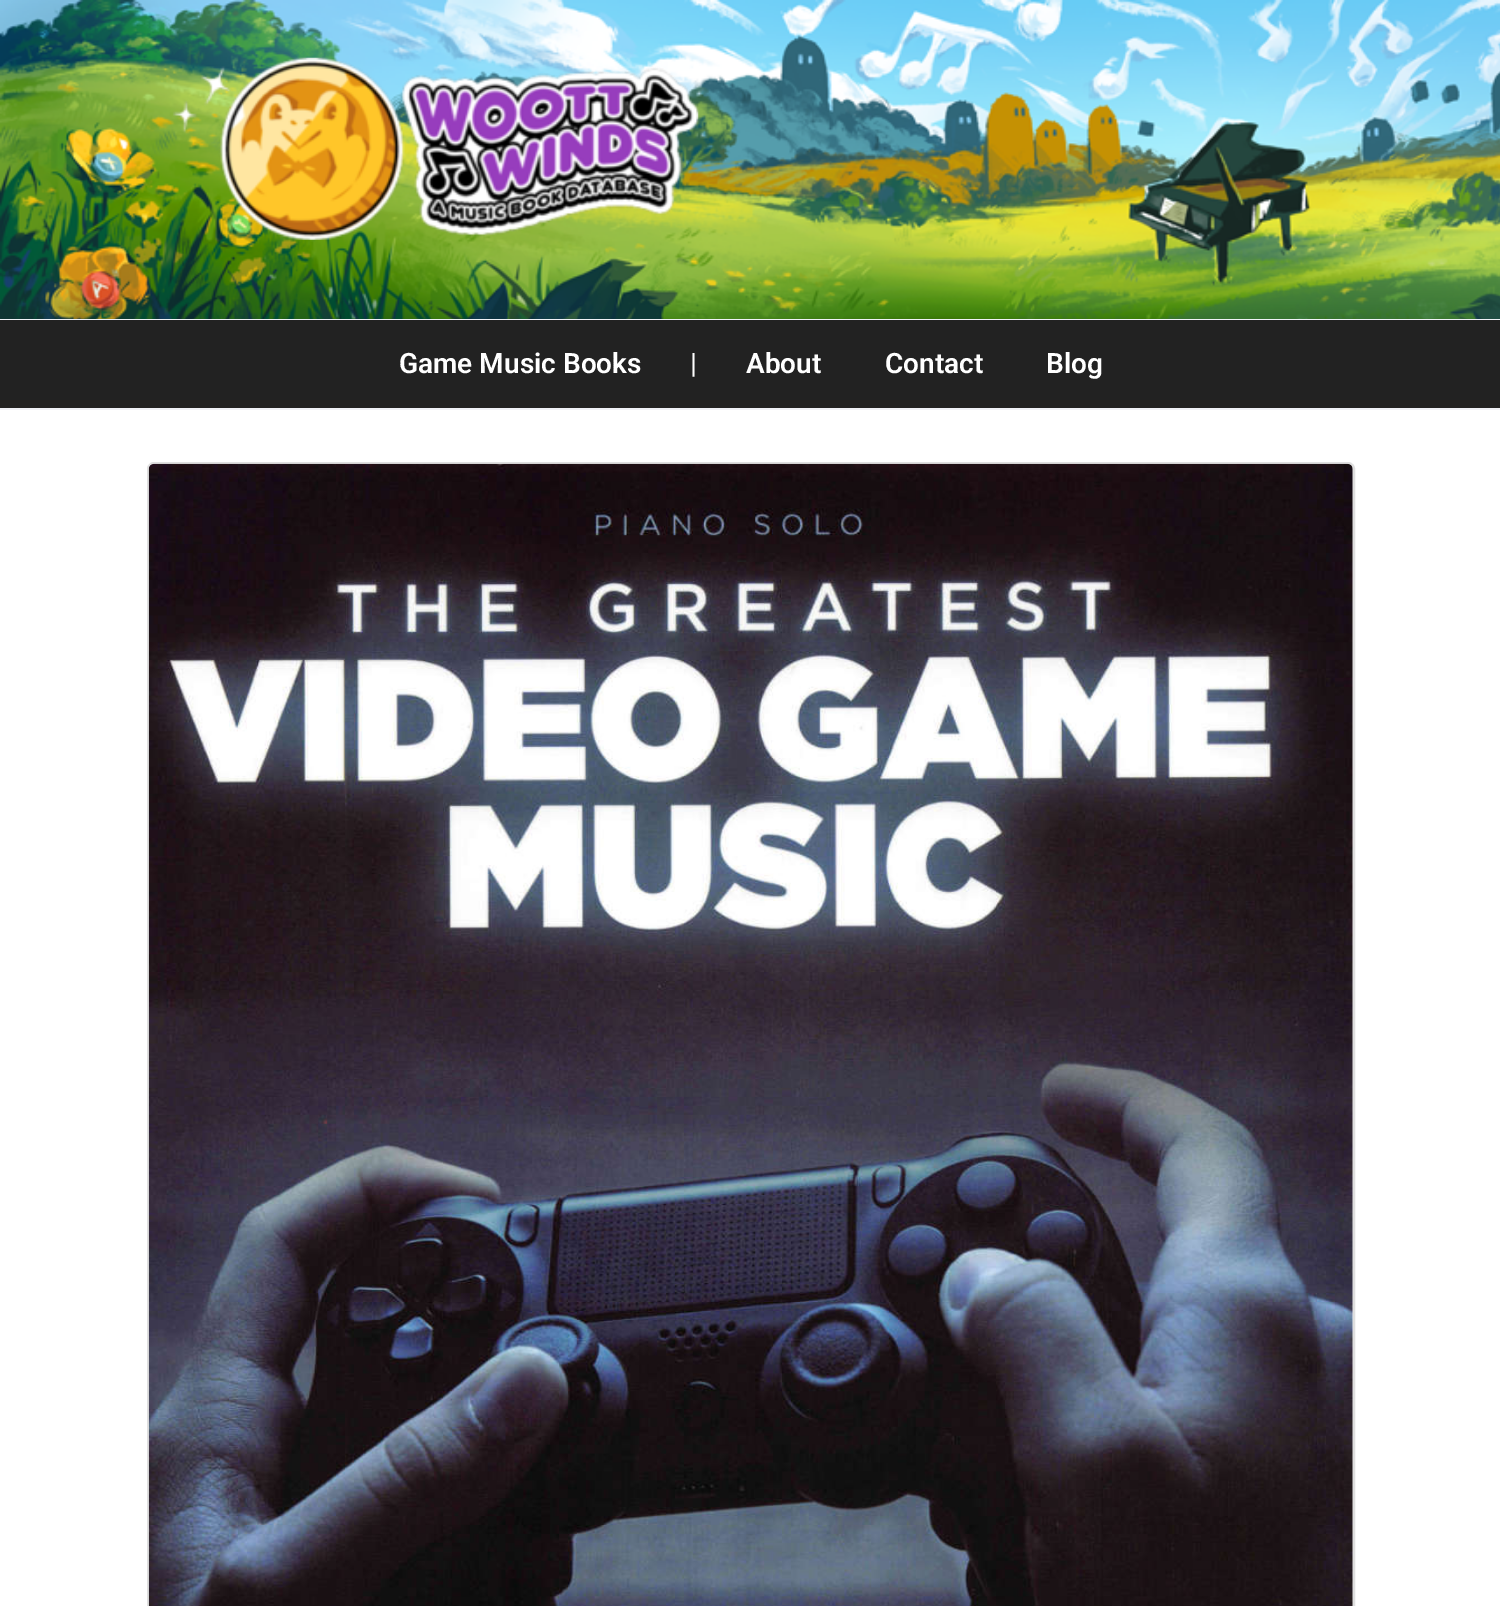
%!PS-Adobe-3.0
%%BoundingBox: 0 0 1500 1606
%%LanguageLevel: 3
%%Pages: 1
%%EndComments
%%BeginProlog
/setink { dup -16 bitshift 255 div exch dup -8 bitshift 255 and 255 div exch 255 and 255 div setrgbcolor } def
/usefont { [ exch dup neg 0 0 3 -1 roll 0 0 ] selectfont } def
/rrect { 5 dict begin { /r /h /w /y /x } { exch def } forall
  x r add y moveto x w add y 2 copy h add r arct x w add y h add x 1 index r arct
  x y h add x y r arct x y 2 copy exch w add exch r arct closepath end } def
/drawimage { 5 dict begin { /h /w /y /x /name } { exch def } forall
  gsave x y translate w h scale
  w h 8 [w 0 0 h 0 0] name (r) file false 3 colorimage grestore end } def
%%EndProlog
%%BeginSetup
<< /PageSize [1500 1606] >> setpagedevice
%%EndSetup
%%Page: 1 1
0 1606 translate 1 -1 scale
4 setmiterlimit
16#FFFFFF setink
0 0 1500 1606 rectfill
(img1.raw) 0 0 1500 319 drawimage
16#F0F2F7 setink
0 319 1500 1 rectfill
(img2.raw) 173 57 526 183 drawimage
16#222222 setink
0 320 1500 88 rectfill
16#F0F2F7 setink
0 408 1500 2 rectfill
/Roboto-SemiBold 28 usefont
16#FFFFFF setink
399 373 moveto (Game Music Books) show
/Roboto-Regular 28 usefont
690 373 moveto (|) show
/Roboto-SemiBold 28 usefont
[
    [(About) 746 373]
    [(Contact) 885 373]
    [(Blog) 1046 373]
] { aload pop moveto show } forall
16#DFDFDF setink
2 setlinewidth
148 463 1206 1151 6 rrect stroke
(img3.raw) 148 463 1205 1143 drawimage
showpage
%%EOF
